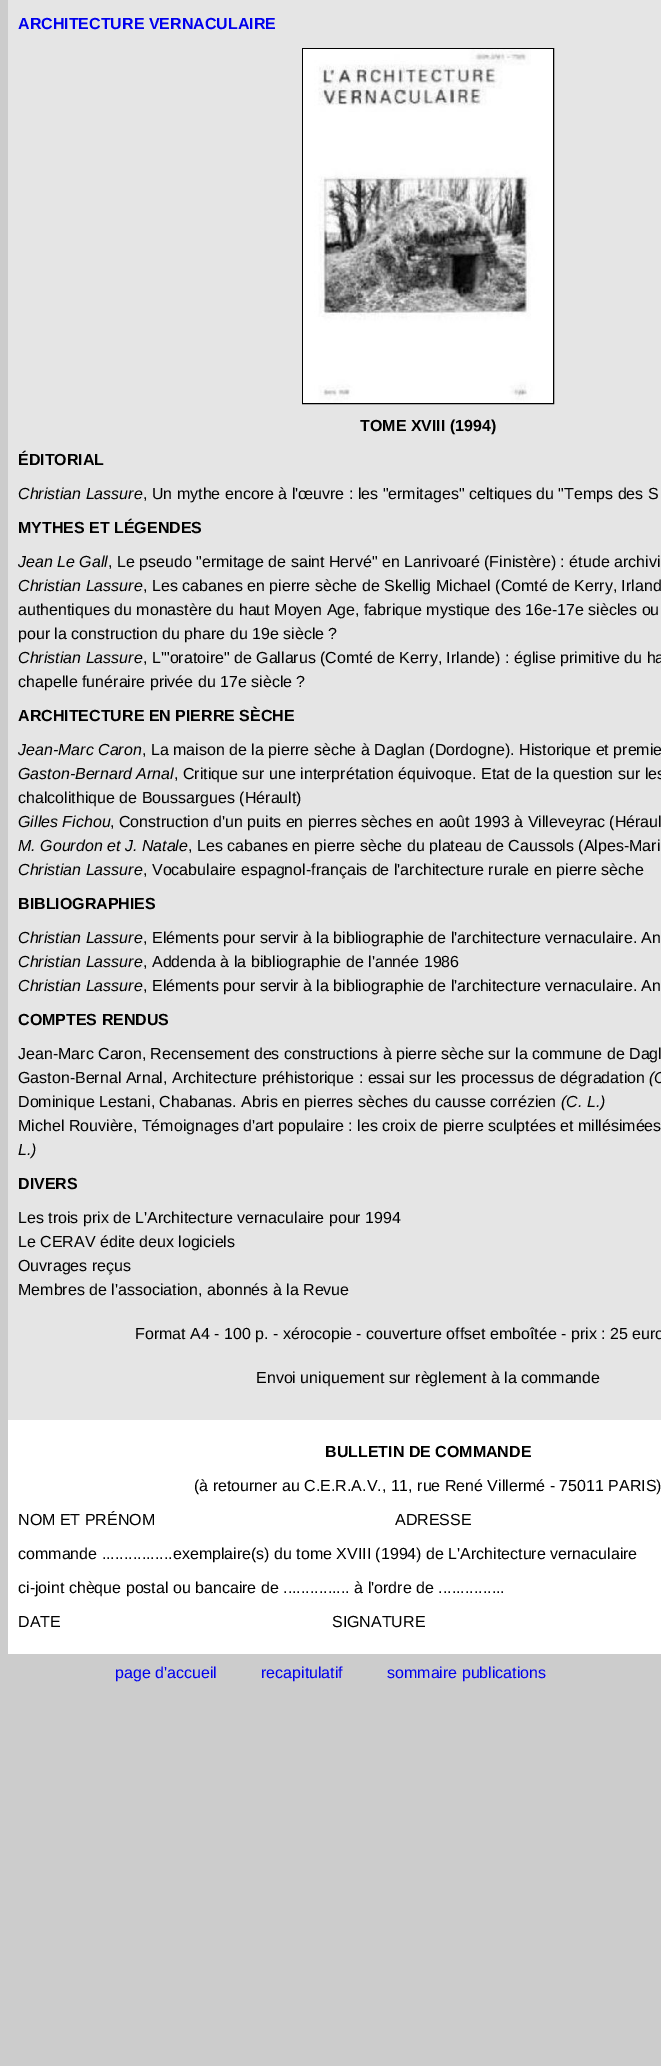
%!PS-Adobe-3.0
%%BoundingBox: 0 0 661 2066
%%LanguageLevel: 3
%%Pages: 1
%%EndComments
%%BeginProlog
/setink { dup -16 bitshift 255 div exch dup -8 bitshift 255 and 255 div exch 255 and 255 div setrgbcolor } def
/usefont { [ exch dup neg 0 0 3 -1 roll 0 0 ] selectfont } def
/drawimage { 5 dict begin { /h /w /y /x /name } { exch def } forall
  gsave x y translate w h scale
  w h 8 [w 0 0 h 0 0] name (r) file false 3 colorimage grestore end } def
%%EndProlog
%%BeginSetup
<< /PageSize [661 2066] >> setpagedevice
%%EndSetup
%%Page: 1 1
0 2066 translate 1 -1 scale
4 setmiterlimit
16#CCCCCC setink
0 0 661 2066 rectfill
16#E5E5E5 setink
8 0 653 1420 rectfill
/LiberationSans-Bold 16 usefont
16#0000EE setink
18 29 moveto (ARCHITECTURE VERNACULAIRE) show
16#000000 setink
302.5 48.5 251 355 rectstroke
(img1.raw) 303 49 250 354 drawimage
360 431 moveto (TOME XVIII \(1994\)) show
18 465 moveto (ÉDITORIAL) show
/LiberationSans-Italic 16 usefont
18 499 moveto (Christian Lassure) show
/LiberationSans-Regular 16 usefont
143 499 moveto (, Un mythe encore à l'œuvre : les "ermitages" celtiques du "Temps des S) show
/LiberationSans-Bold 16 usefont
18 533 moveto (MYTHES ET LÉGENDES) show
/LiberationSans-Italic 16 usefont
18 567 moveto (Jean Le Gall) show
/LiberationSans-Regular 16 usefont
108 567 moveto (, Le pseudo "ermitage de saint Hervé" en Lanrivoaré \(Finistère\) : étude archivi) show
/LiberationSans-Italic 16 usefont
18 591 moveto (Christian Lassure) show
/LiberationSans-Regular 16 usefont
[
    [(, Les cabanes en pierre sèche de Skellig Michael \(Comté de Kerry, Irland) 143 591]
    [(authentiques du monastère du haut Moyen Age, fabrique mystique des 16e-17e siècles ou) 18 615]
    [(pour la construction du phare du 19e siècle ?) 18 639]
] { aload pop moveto show } forall
/LiberationSans-Italic 16 usefont
18 663 moveto (Christian Lassure) show
/LiberationSans-Regular 16 usefont
143 663 moveto (, L'"oratoire" de Gallarus \(Comté de Kerry, Irlande\) : église primitive du ha) show
18 687 moveto (chapelle funéraire privée du 17e siècle ?) show
/LiberationSans-Bold 16 usefont
18 721 moveto (ARCHITECTURE EN PIERRE SÈCHE) show
/LiberationSans-Italic 16 usefont
18 755 moveto (Jean-Marc Caron) show
/LiberationSans-Regular 16 usefont
142 755 moveto (, La maison de la pierre sèche à Daglan \(Dordogne\). Historique et premie) show
/LiberationSans-Italic 16 usefont
18 779 moveto (Gaston-Bernard Arnal) show
/LiberationSans-Regular 16 usefont
174 779 moveto (, Critique sur une interprétation équivoque. Etat de la question sur les) show
18 803 moveto (chalcolithique de Boussargues \(Hérault\)) show
/LiberationSans-Italic 16 usefont
18 827 moveto (Gilles Fichou) show
/LiberationSans-Regular 16 usefont
110 827 moveto (, Construction d'un puits en pierres sèches en août 1993 à Villeveyrac \(Héraul) show
/LiberationSans-Italic 16 usefont
18 851 moveto (M. Gourdon et J. Natale) show
/LiberationSans-Regular 16 usefont
188 851 moveto (, Les cabanes en pierre sèche du plateau de Caussols \(Alpes-Mari) show
/LiberationSans-Italic 16 usefont
18 875 moveto (Christian Lassure) show
/LiberationSans-Regular 16 usefont
143 875 moveto (, Vocabulaire espagnol-français de l'architecture rurale en pierre sèche) show
/LiberationSans-Bold 16 usefont
18 909 moveto (BIBLIOGRAPHIES) show
/LiberationSans-Italic 16 usefont
18 943 moveto (Christian Lassure) show
/LiberationSans-Regular 16 usefont
143 943 moveto (, Eléments pour servir à la bibliographie de l'architecture vernaculaire. An) show
/LiberationSans-Italic 16 usefont
18 967 moveto (Christian Lassure) show
/LiberationSans-Regular 16 usefont
143 967 moveto (, Addenda à la bibliographie de l'année 1986) show
/LiberationSans-Italic 16 usefont
18 991 moveto (Christian Lassure) show
/LiberationSans-Regular 16 usefont
143 991 moveto (, Eléments pour servir à la bibliographie de l'architecture vernaculaire. An) show
/LiberationSans-Bold 16 usefont
18 1025 moveto (COMPTES RENDUS) show
/LiberationSans-Regular 16 usefont
18 1059 moveto (Jean-Marc Caron, Recensement des constructions à pierre sèche sur la commune de Dagl) show
18 1083 moveto (Gaston-Bernal Arnal, Architecture préhistorique : essai sur les processus de dégradation) show
/LiberationSans-Italic 16 usefont
649 1083 moveto (\(C) show
/LiberationSans-Regular 16 usefont
18 1107 moveto (Dominique Lestani, Chabanas. Abris en pierres sèches du causse corrézien) show
/LiberationSans-Italic 16 usefont
561 1107 moveto (\(C. L.\)) show
/LiberationSans-Regular 16 usefont
18 1131 moveto (Michel Rouvière, Témoignages d'art populaire : les croix de pierre sculptées et millésimées) show
/LiberationSans-Italic 16 usefont
18 1155 moveto (L.\)) show
/LiberationSans-Bold 16 usefont
18 1189 moveto (DIVERS) show
/LiberationSans-Regular 16 usefont
[
    [(Les trois prix de L'Architecture vernaculaire pour 1994) 18 1223]
    [(Le CERAV édite deux logiciels) 18 1247]
    [(Ouvrages reçus) 18 1271]
    [(Membres de l'association, abonnés à la Revue) 18 1295]
    [(Format A4 - 100 p. - xérocopie - couverture offset emboîtée - prix : 25 euro) 135 1339]
    [(Envoi uniquement sur règlement à la commande) 256 1383]
] { aload pop moveto show } forall
16#FFFFFF setink
8 1420 653 234 rectfill
/LiberationSans-Bold 16 usefont
16#000000 setink
325 1457 moveto (BULLETIN DE COMMANDE) show
/LiberationSans-Regular 16 usefont
[
    [(\(à retourner au C.E.R.A.V., 11, rue René Villermé - 75011 PARIS\)) 194 1491]
    [(NOM ET PRÉNOM                                                      ADRESSE) 18 1525]
    [(commande ................exemplaire\(s\) du tome XVIII \(1994\) de L'Architecture vernaculaire) 18 1559]
    [(ci-joint chèque postal ou bancaire de ............... à l'ordre de ...............) 18 1593]
    [(DATE                                                             SIGNATURE) 18 1627]
] { aload pop moveto show } forall
16#0000EE setink
[
    [(page d'accueil) 115 1678]
    [(recapitulatif) 261 1678]
    [(sommaire publications) 387 1678]
] { aload pop moveto show } forall
showpage
%%EOF
